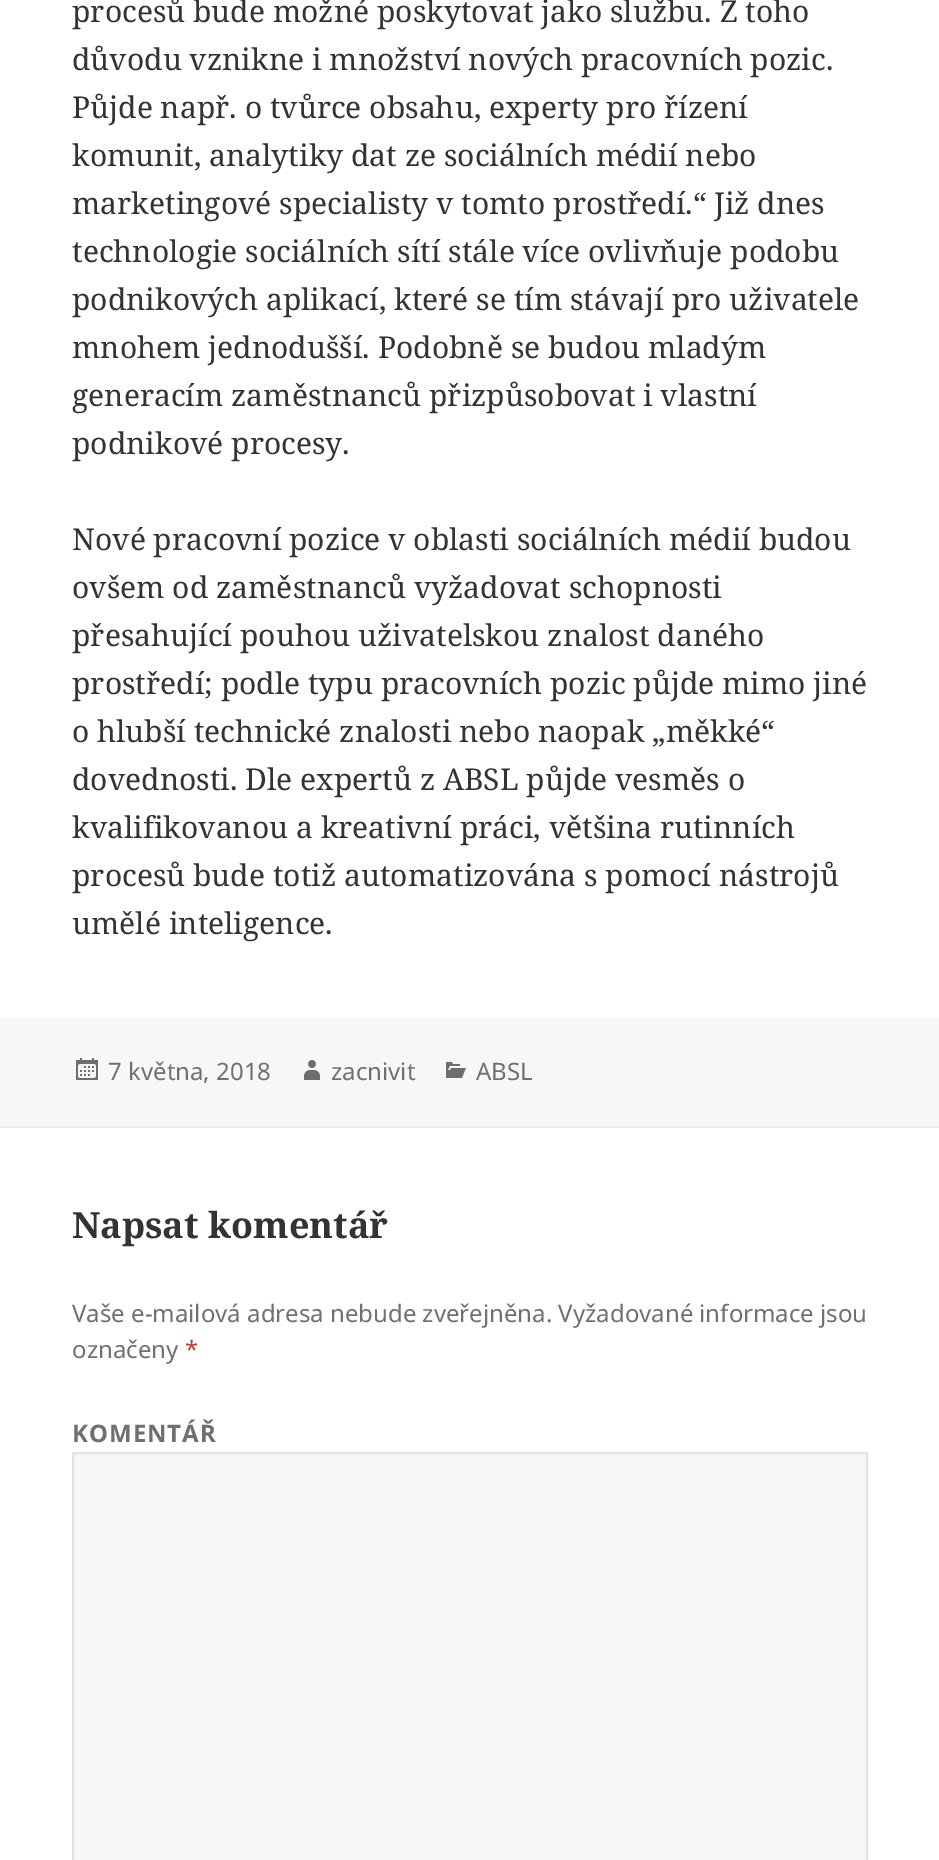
%!PS-Adobe-3.0
%%BoundingBox: 0 0 939 1860
%%LanguageLevel: 3
%%Pages: 1
%%EndComments
%%BeginProlog
/setink { dup -16 bitshift 255 div exch dup -8 bitshift 255 and 255 div exch 255 and 255 div setrgbcolor } def
/usefont { [ exch dup neg 0 0 3 -1 roll 0 0 ] selectfont } def
/drawimage { 5 dict begin { /h /w /y /x /name } { exch def } forall
  gsave x y translate w h scale
  w h 8 [w 0 0 h 0 0] name (r) file false 3 colorimage grestore end } def
%%EndProlog
%%BeginSetup
<< /PageSize [939 1860] >> setpagedevice
%%EndSetup
%%Page: 1 1
0 1860 translate 1 -1 scale
4 setmiterlimit
16#FFFFFF setink
0 0 939 1860 rectfill
/NotoSerif-Regular 30 usefont
16#333333 setink
[
    [(procesů bude možné poskytovat jako službu. Z toho) 72 22]
    [(důvodu vznikne i množství nových pracovních pozic.) 72 70]
    [(Půjde např. o tvůrce obsahu, experty pro řízení) 72 118]
    [(komunit, analytiky dat ze sociálních médií nebo) 72 166]
    [(marketingové specialisty v tomto prostředí.“ Již dnes) 72 214]
    [(technologie sociálních sítí stále více ovlivňuje podobu) 72 262]
    [(podnikových aplikací, které se tím stávají pro uživatele) 72 310]
    [(mnohem jednodušší. Podobně se budou mladým) 72 358]
    [(generacím zaměstnanců přizpůsobovat i vlastní) 72 406]
    [(podnikové procesy.) 72 454]
    [(Nové pracovní pozice v oblasti sociálních médií budou) 72 550]
    [(ovšem od zaměstnanců vyžadovat schopnosti) 72 598]
    [(přesahující pouhou uživatelskou znalost daného) 72 646]
    [(prostředí; podle typu pracovních pozic půjde mimo jiné) 72 694]
    [(o hlubší technické znalosti nebo naopak „měkké“) 72 742]
    [(dovednosti. Dle expertů z ABSL půjde vesměs o) 72 790]
    [(kvalifikovanou a kreativní práci, většina rutinních) 72 838]
    [(procesů bude totiž automatizována s pomocí nástrojů) 72 886]
    [(umělé inteligence.) 72 934]
] { aload pop moveto show } forall
16#F7F7F7 setink
0 1018 939 108 rectfill
(img1.raw) 76 1058 22 22 drawimage
/NotoSans-Regular 24 usefont
16#707070 setink
108 1080 moveto (7 května, 2018) show
(img2.raw) 304 1060 16 20 drawimage
331 1080 moveto (zacnivit) show
(img3.raw) 446 1062 20 16 drawimage
476 1080 moveto (ABSL) show
16#EBEBEB setink
0 1126 939 2 rectfill
/NotoSerif-Bold 36 usefont
16#333333 setink
72 1238 moveto (Napsat komentář) show
/NotoSans-Regular 24 usefont
16#707070 setink
72 1322 moveto (Vaše e-mailová adresa nebude zveřejněna. Vyžadované informace jsou) show
72 1358 moveto (označeny) show
16#C0392B setink
185 1358 moveto (*) show
/NotoSans-Bold 24 usefont
16#707070 setink
72 1442 moveto 1 0 (KOMENTÁŘ) ashow
16#F7F7F7 setink
73 1453 moveto 867 1453 lineto 867 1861 lineto 73 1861 lineto closepath gsave fill grestore
16#E3E3E3 setink
2 setlinewidth
stroke
showpage
%%EOF
